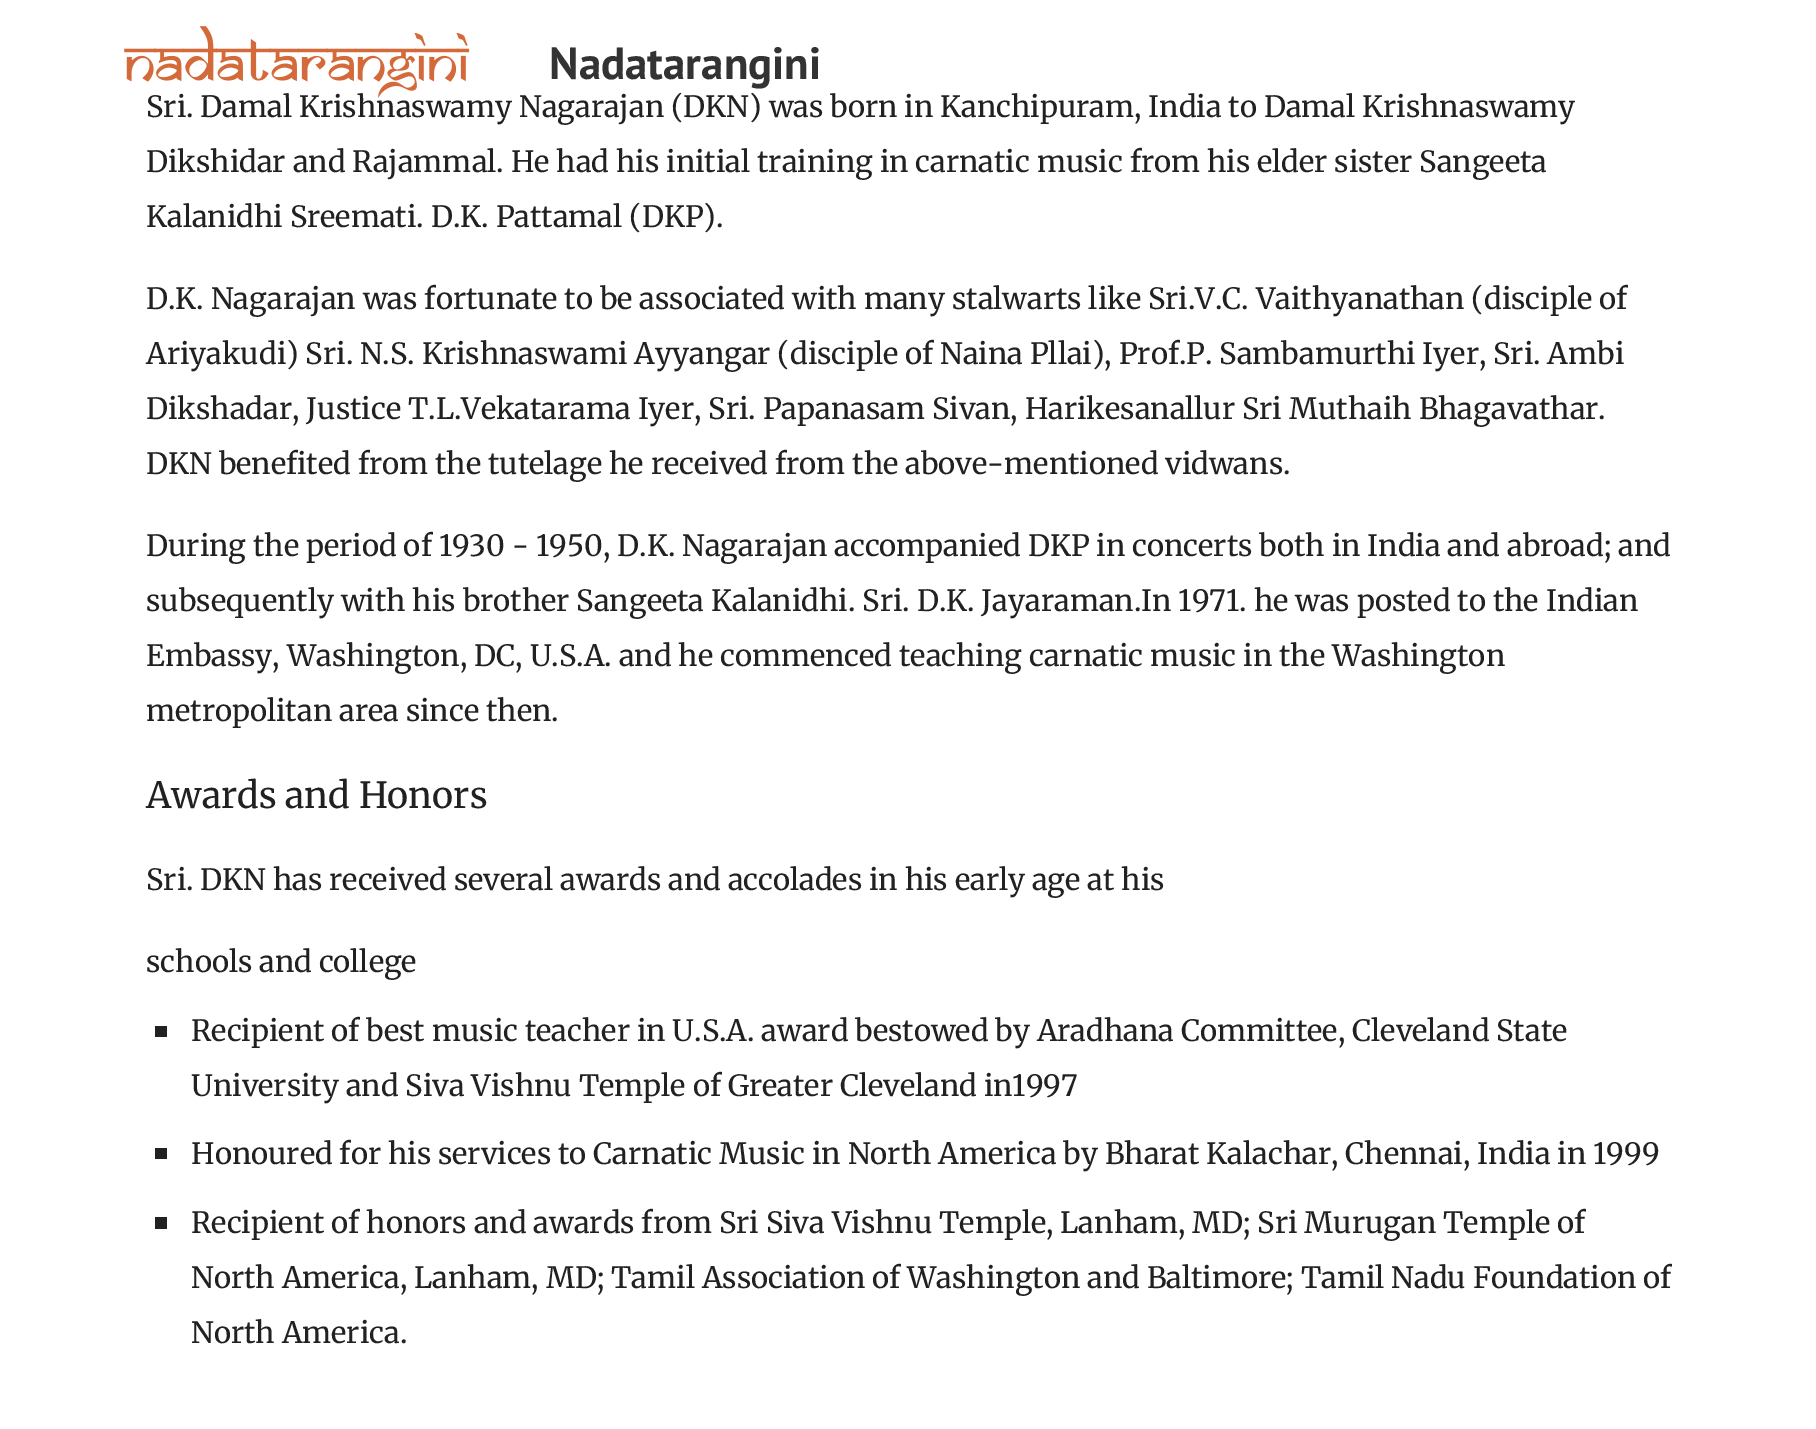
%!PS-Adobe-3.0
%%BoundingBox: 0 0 1816 1429
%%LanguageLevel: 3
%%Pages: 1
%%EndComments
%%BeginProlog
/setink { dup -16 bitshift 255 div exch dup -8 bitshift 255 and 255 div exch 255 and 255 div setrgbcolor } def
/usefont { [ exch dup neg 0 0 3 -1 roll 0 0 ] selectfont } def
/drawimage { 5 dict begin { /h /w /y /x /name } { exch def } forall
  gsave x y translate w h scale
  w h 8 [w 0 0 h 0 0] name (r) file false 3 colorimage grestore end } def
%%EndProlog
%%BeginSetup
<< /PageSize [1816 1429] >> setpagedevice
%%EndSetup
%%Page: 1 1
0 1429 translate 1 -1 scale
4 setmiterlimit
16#FFFFFF setink
0 0 1816 1429 rectfill
/Merriweather-Regular 29.25 usefont
16#212121 setink
146 117 moveto (Sri. Damal Krishnaswamy Nagarajan \(DKN\) was born in Kanchipuram, India to Damal Krishnaswamy) show
(img1.raw) 124 26 346 72 drawimage
/PTSans-Bold 45 usefont
16#333333 setink
549 79 moveto (Nadatarangini) show
/Merriweather-Regular 29.25 usefont
16#212121 setink
[
    [(Dikshidar and Rajammal. He had his initial training in carnatic music from his elder sister Sangeeta) 146 172]
    [(Kalanidhi Sreemati. D.K. Pattamal \(DKP\).) 146 227]
    [(D.K. Nagarajan was fortunate to be associated with many stalwarts like Sri.V.C. Vaithyanathan \(disciple of) 146 309]
    [(Ariyakudi\) Sri. N.S. Krishnaswami Ayyangar \(disciple of Naina Pllai\), Prof.P. Sambamurthi Iyer, Sri. Ambi) 146 364]
    [(Dikshadar, Justice T.L.Vekatarama Iyer, Sri. Papanasam Sivan, Harikesanallur Sri Muthaih Bhagavathar.) 146 419]
    [(DKN benefited from the tutelage he received from the above-mentioned vidwans.) 146 474]
    [(During the period of 1930 - 1950, D.K. Nagarajan accompanied DKP in concerts both in India and abroad; and) 146 556]
    [(subsequently with his brother Sangeeta Kalanidhi. Sri. D.K. Jayaraman.In 1971. he was posted to the Indian) 146 611]
    [(Embassy, Washington, DC, U.S.A. and he commenced teaching carnatic music in the Washington) 146 666]
    [(metropolitan area since then.) 146 721]
] { aload pop moveto show } forall
/Merriweather-Regular 36 usefont
146 808 moveto (Awards and Honors) show
/Merriweather-Regular 29.25 usefont
146 890 moveto (Sri. DKN has received several awards and accolades in his early age at his) show
146 972 moveto (schools and college) show
155 1026 12 11 rectfill
191 1041 moveto (Recipient of best music teacher in U.S.A. award bestowed by Aradhana Committee, Cleveland State) show
191 1096 moveto (University and Siva Vishnu Temple of Greater Cleveland in1997) show
155 1148 12 11 rectfill
191 1164 moveto (Honoured for his services to Carnatic Music in North America by Bharat Kalachar, Chennai, India in 1999) show
155 1217 12 12 rectfill
[
    [(Recipient of honors and awards from Sri Siva Vishnu Temple, Lanham, MD; Sri Murugan Temple of) 191 1233]
    [(North America, Lanham, MD; Tamil Association of Washington and Baltimore; Tamil Nadu Foundation of) 191 1288]
    [(North America.) 191 1343]
] { aload pop moveto show } forall
showpage
%%EOF
